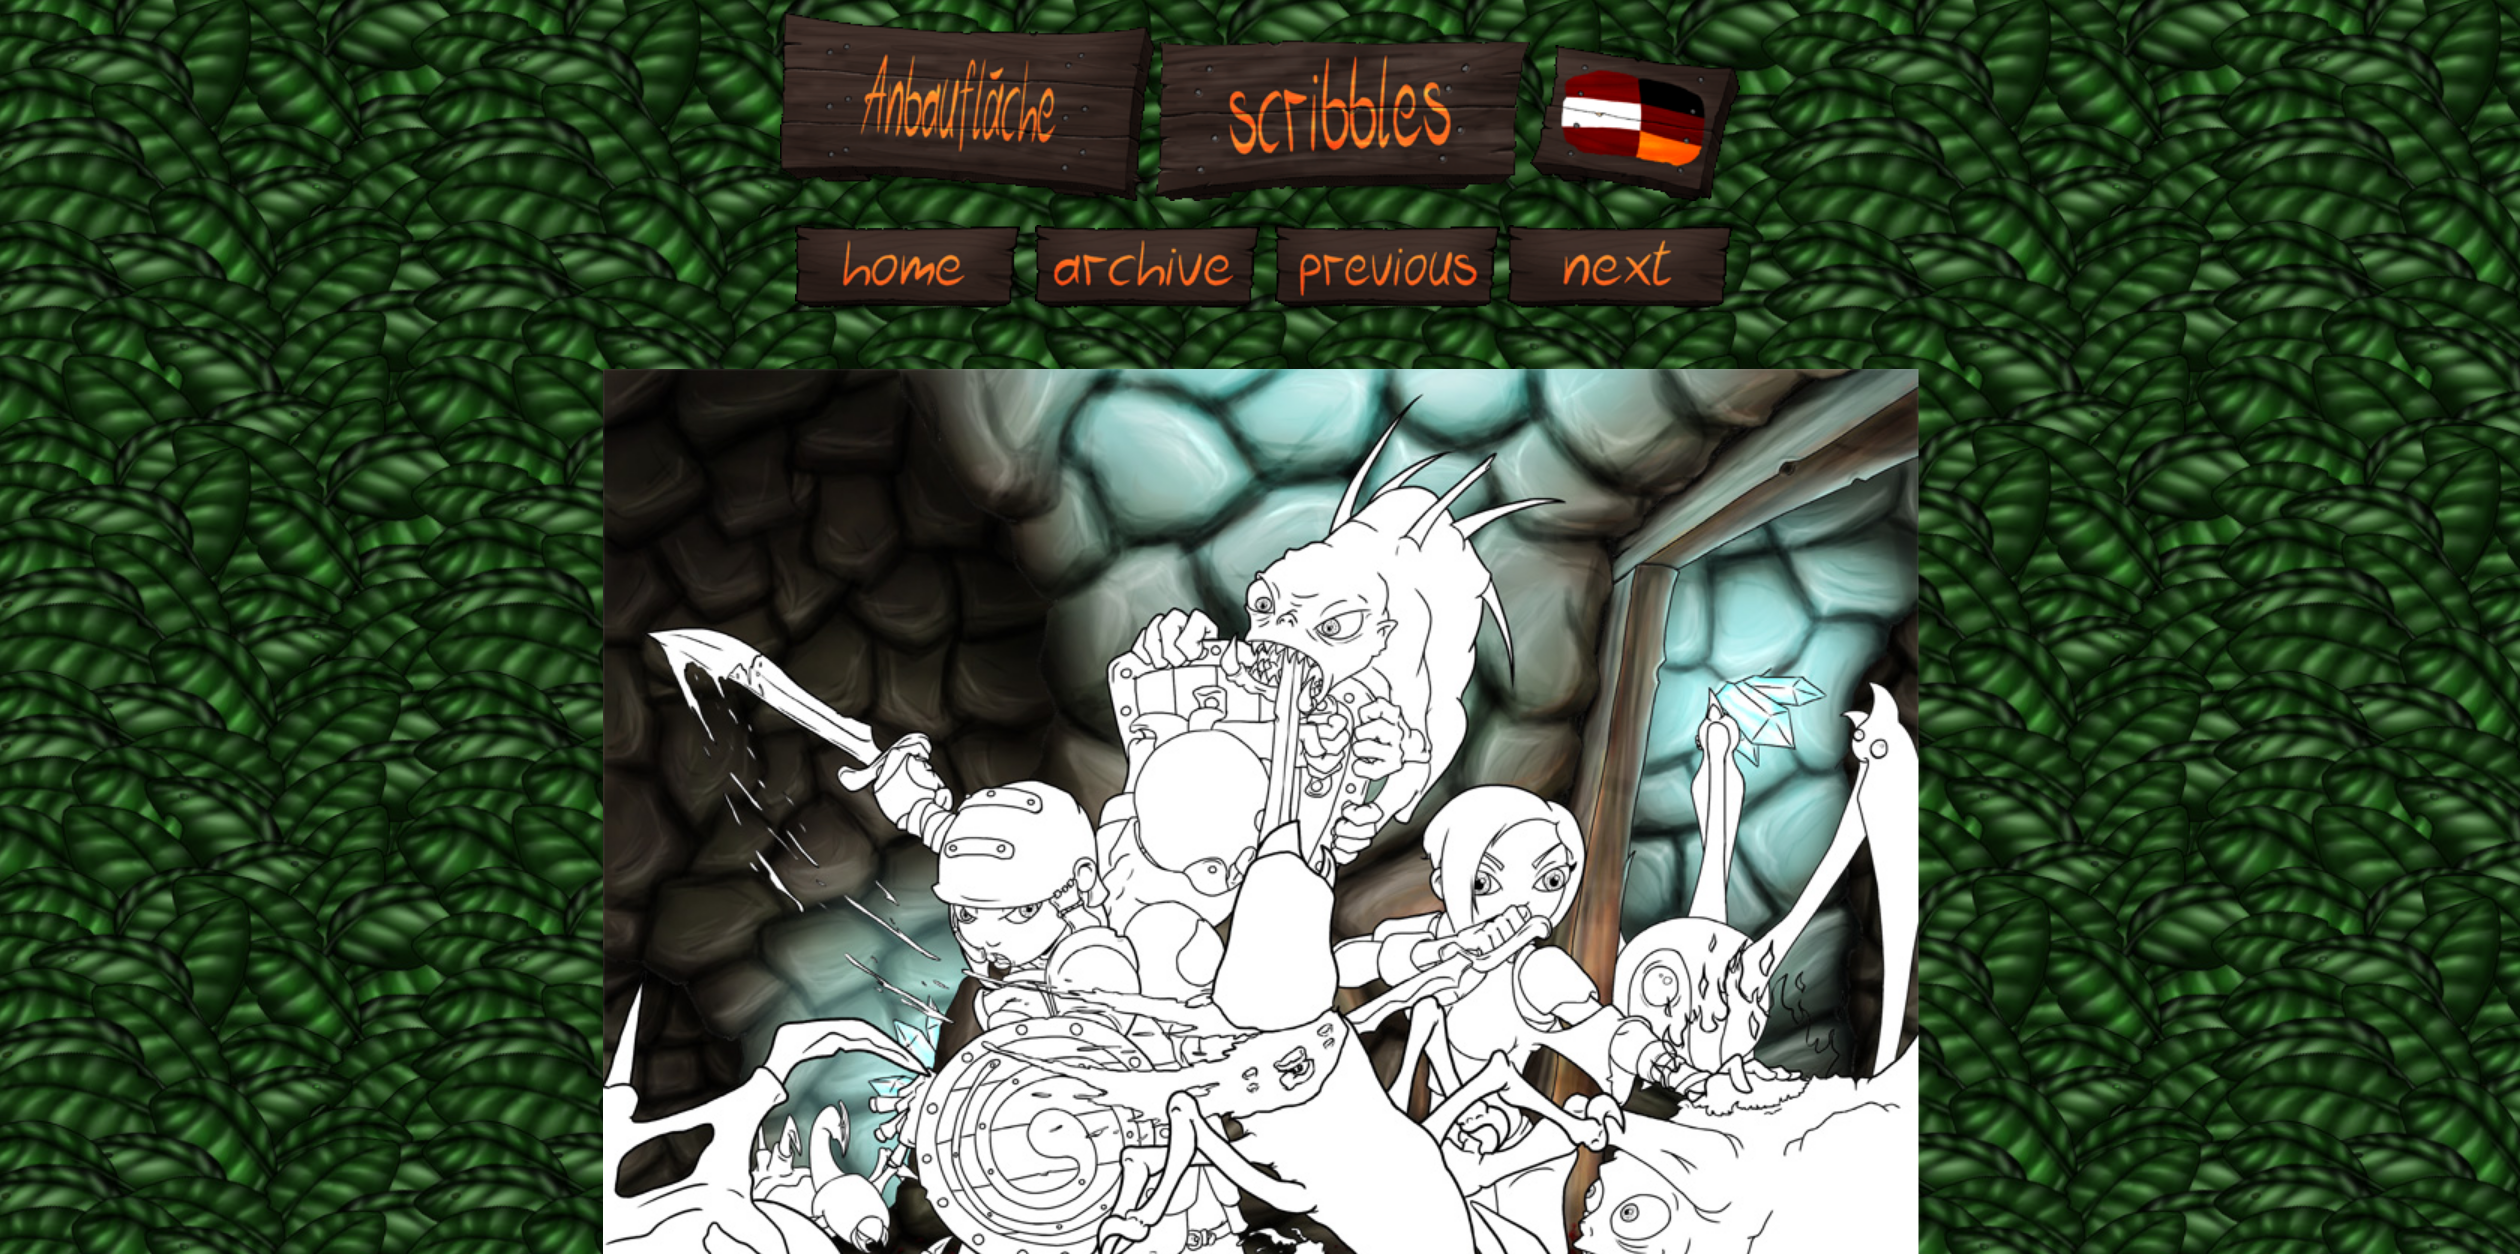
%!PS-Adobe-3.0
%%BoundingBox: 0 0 2520 1254
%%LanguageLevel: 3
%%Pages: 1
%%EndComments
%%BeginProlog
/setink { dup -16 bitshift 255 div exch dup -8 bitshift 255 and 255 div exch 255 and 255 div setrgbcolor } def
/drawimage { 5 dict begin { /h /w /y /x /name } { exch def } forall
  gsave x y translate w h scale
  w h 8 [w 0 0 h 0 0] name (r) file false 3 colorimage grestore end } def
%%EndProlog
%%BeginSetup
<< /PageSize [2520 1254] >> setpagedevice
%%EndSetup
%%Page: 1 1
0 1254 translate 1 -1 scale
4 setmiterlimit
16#FFFFFF setink
0 0 2520 1254 rectfill
(img1.raw) 0 0 2520 1254 drawimage
(img2.raw) 780 12 375 189 drawimage
(img3.raw) 1155 40 375 161 drawimage
(img4.raw) 1530 45 210 156 drawimage
(img5.raw) 795 225 225 83 drawimage
(img6.raw) 1035 225 225 83 drawimage
(img7.raw) 1275 225 225 83 drawimage
(img8.raw) 1507 225 226 83 drawimage
(img9.raw) 603 369 1316 885 drawimage
showpage
%%EOF
